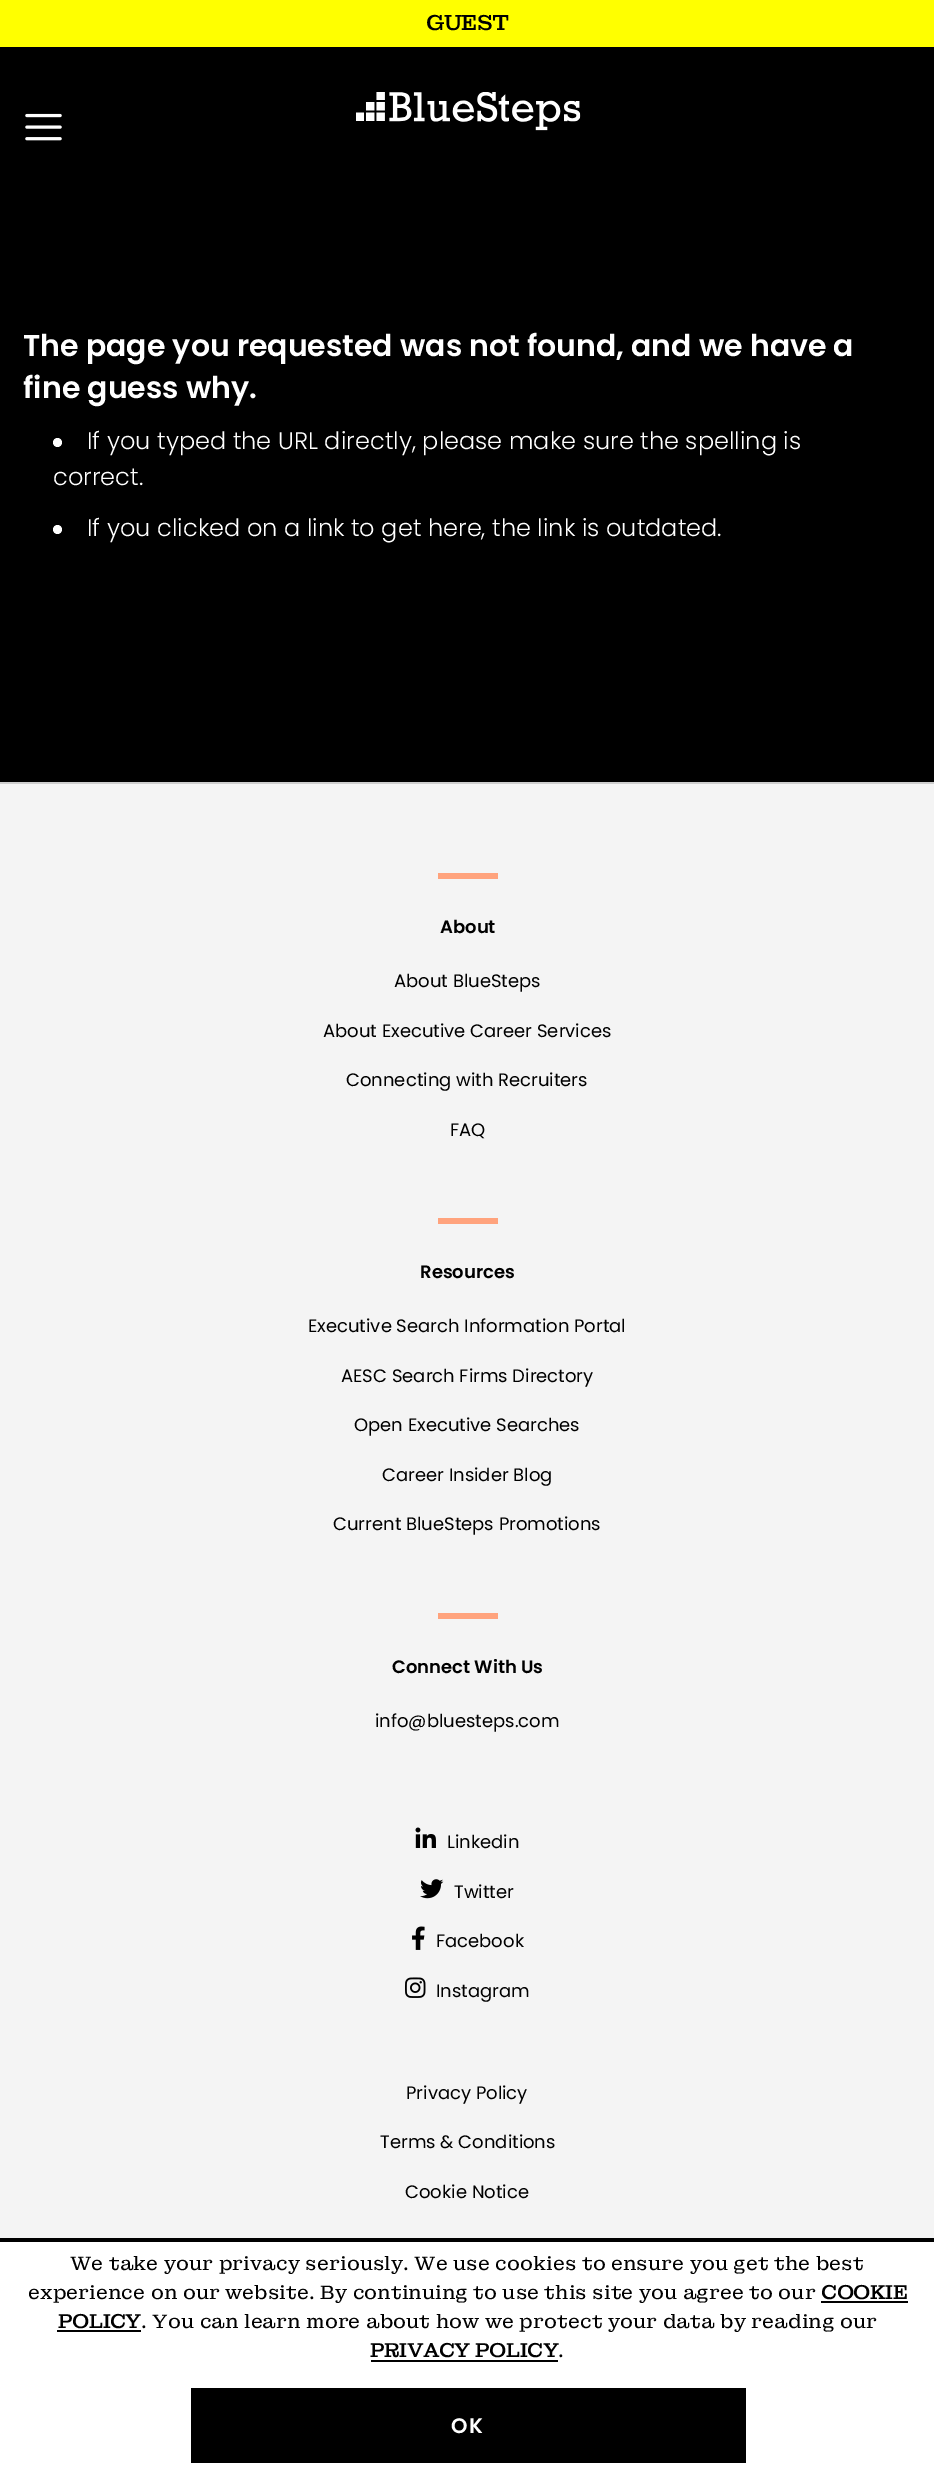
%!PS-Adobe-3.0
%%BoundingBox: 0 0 934 2492
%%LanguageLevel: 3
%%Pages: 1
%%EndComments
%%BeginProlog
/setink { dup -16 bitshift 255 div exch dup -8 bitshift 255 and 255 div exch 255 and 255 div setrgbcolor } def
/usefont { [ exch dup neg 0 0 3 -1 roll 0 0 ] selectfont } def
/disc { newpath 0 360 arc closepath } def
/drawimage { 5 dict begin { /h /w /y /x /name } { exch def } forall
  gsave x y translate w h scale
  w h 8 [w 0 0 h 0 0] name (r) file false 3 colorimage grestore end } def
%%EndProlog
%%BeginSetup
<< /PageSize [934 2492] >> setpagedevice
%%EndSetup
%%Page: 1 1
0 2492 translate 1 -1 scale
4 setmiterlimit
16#000000 setink
0 0 934 2492 rectfill
16#FFFF00 setink
0 0 934 47 rectfill
/MontaguSlab-Bold 21 usefont
16#000000 setink
426 30 moveto (GUEST) show
(img1.raw) 25 113 37 28 drawimage
(img2.raw) 356 92 225 39 drawimage
/Poppins-SemiBold 30 usefont
16#FFFFFF setink
23 356 moveto (The page you requested was not found, and we have a) show
23 398 moveto (fine guess why.) show
57.5 442.5 4.5 disc fill
/Poppins-Light 24 usefont
87 449 moveto (If you typed the URL directly, please make sure the spelling is) show
53 485 moveto (correct.) show
57.5 529.5 4.5 disc fill
87 536 moveto (If you clicked on a link to get here, the link is outdated.) show
[
    [0 784 934 1454 16#F4F4F4]
    [0 782 934 2 16#CECECE]
    [438 873 60 6 16#FFA37D]
] { aload pop setink rectfill } forall
/Poppins-SemiBold 18 usefont
16#000000 setink
440 933 moveto (About) show
/Poppins-Regular 18 usefont
[
    [(About BlueSteps) 394 987]
    [(About Executive Career Services) 323 1037]
    [(Connecting with Recruiters) 346 1086]
    [(FAQ) 450 1136]
] { aload pop moveto show } forall
16#FFA37D setink
438 1218 60 6 rectfill
/Poppins-SemiBold 18 usefont
16#000000 setink
420 1278 moveto (Resources) show
/Poppins-Regular 18 usefont
[
    [(Executive Search Information Portal) 308 1332]
    [(AESC Search Firms Directory) 341 1382]
    [(Open Executive Searches) 354 1431]
    [(Career Insider Blog) 382 1481]
    [(Current BlueSteps Promotions) 333 1530]
] { aload pop moveto show } forall
16#FFA37D setink
438 1613 60 6 rectfill
/Poppins-SemiBold 18 usefont
16#000000 setink
392 1673 moveto (Connect With Us) show
/Poppins-Regular 18 usefont
375 1727 moveto (info@bluesteps.com) show
(img3.raw) 415 1827 21 21 drawimage
447 1848 moveto (Linkedin) show
(img4.raw) 420 1879 24 20 drawimage
454 1898 moveto (Twitter) show
(img5.raw) 412 1926 13 24 drawimage
436 1947 moveto (Facebook) show
(img6.raw) 405 1977 21 21 drawimage
[
    [(Instagram) 436 1997]
    [(Privacy Policy) 406 2099]
    [(Terms & Conditions) 380 2148]
    [(Cookie Notice) 405 2198]
] { aload pop moveto show } forall
16#FFFFFF setink
0 2242 934 250 rectfill
/MontaguSlab-Regular 19.5 usefont
16#000000 setink
70 2270 moveto (We take your privacy seriously. We use cookies to ensure you get the best) show
28 2299 moveto (experience on our website. By continuing to use this site you agree to our) show
/MontaguSlab-Bold 19.5 usefont
821 2299 moveto (COOKIE) show
821 2301 87 2 rectfill
58 2328 moveto (POLICY) show
57 2330 84 2 rectfill
/MontaguSlab-Regular 19.5 usefont
141 2328 moveto (. You can learn more about how we protect your data by reading our) show
/MontaguSlab-Bold 19.5 usefont
370 2357 moveto (PRIVACY POLICY) show
371 2360 187 2 rectfill
/MontaguSlab-Regular 19.5 usefont
558 2357 moveto (.) show
191 2388 555 75 rectfill
/Poppins-SemiBold 21 usefont
16#FFFFFF setink
451 2433 moveto 2 0 (OK) ashow
showpage
%%EOF
